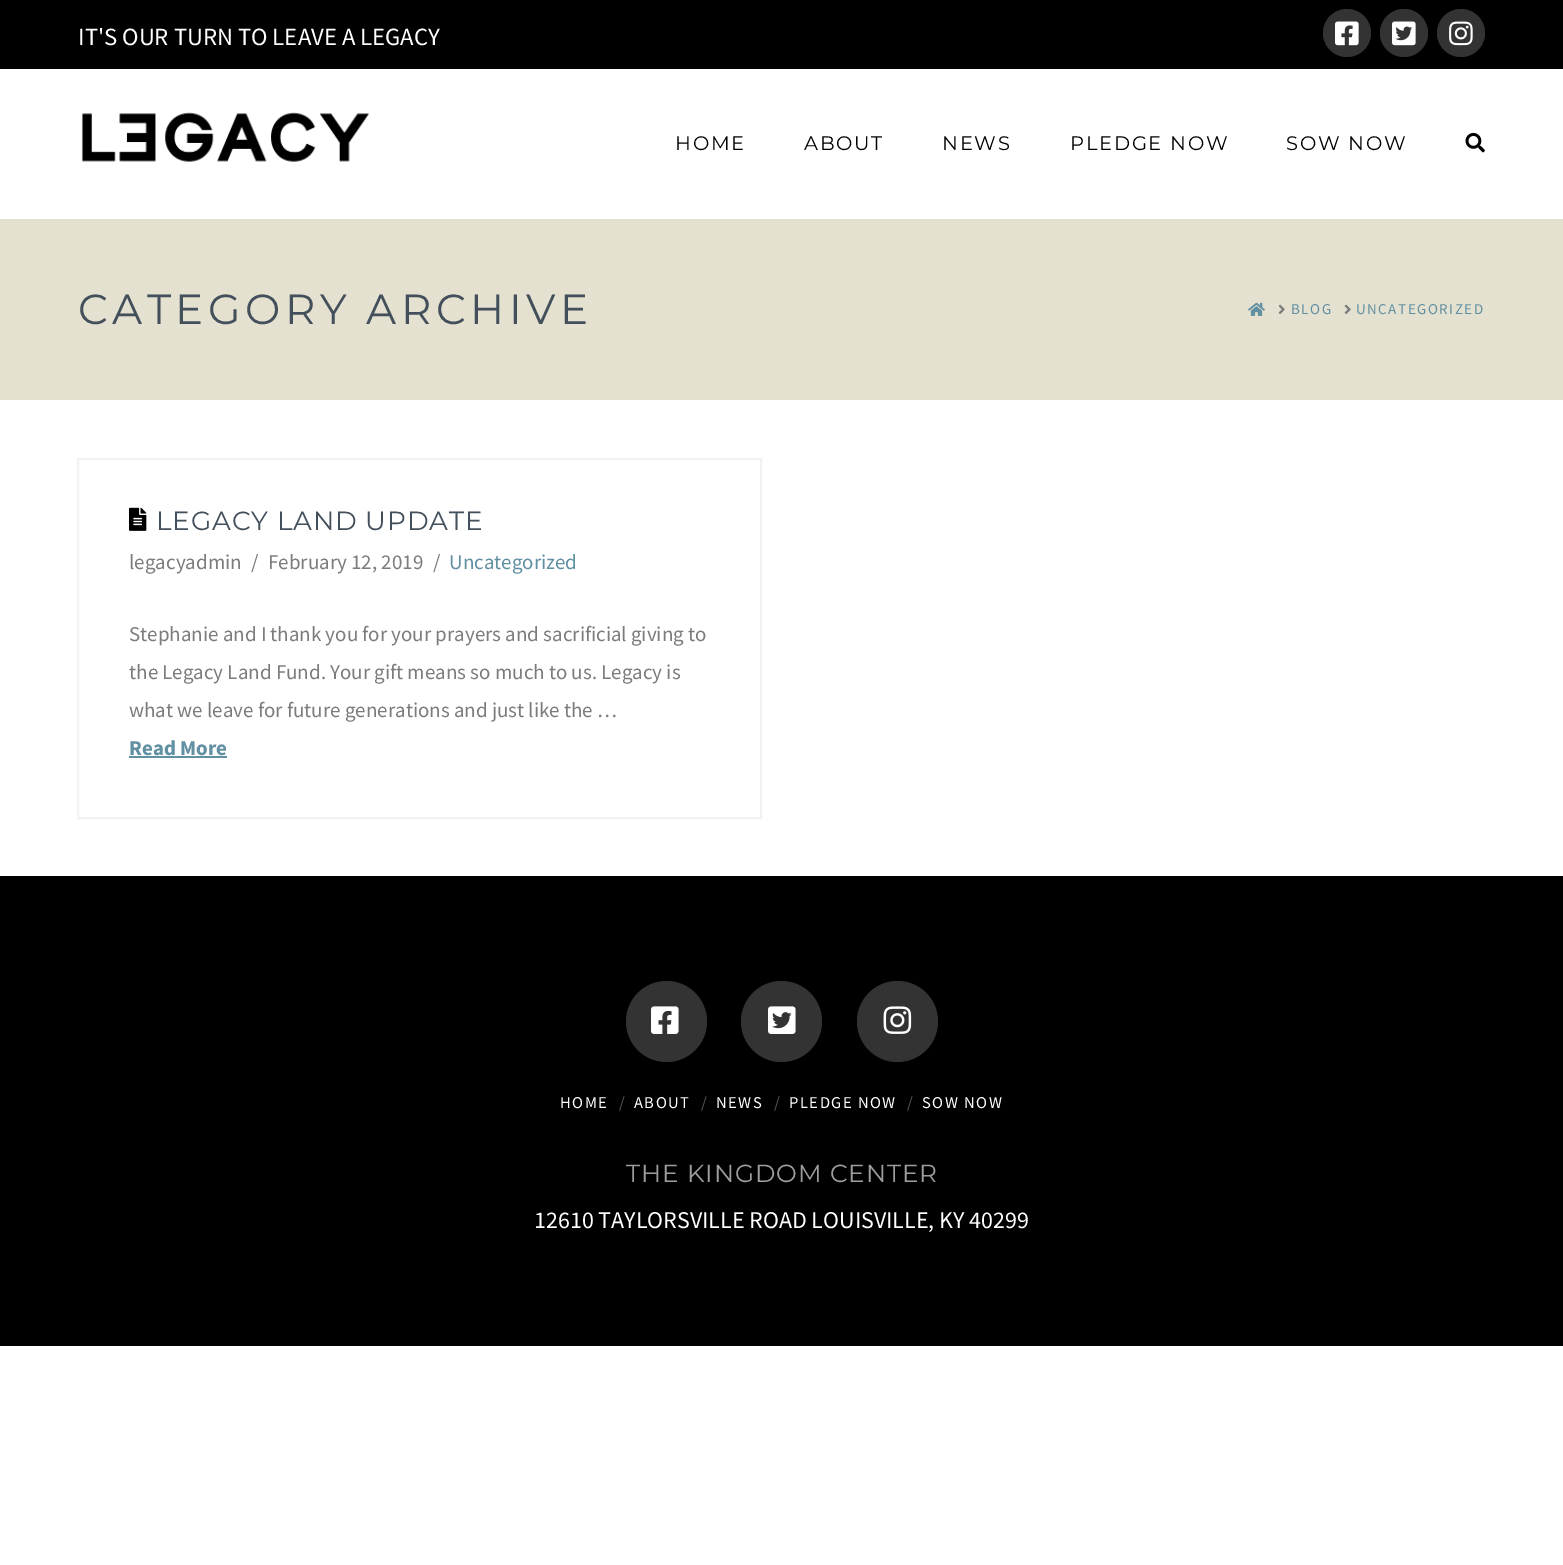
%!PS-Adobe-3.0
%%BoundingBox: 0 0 1563 1565
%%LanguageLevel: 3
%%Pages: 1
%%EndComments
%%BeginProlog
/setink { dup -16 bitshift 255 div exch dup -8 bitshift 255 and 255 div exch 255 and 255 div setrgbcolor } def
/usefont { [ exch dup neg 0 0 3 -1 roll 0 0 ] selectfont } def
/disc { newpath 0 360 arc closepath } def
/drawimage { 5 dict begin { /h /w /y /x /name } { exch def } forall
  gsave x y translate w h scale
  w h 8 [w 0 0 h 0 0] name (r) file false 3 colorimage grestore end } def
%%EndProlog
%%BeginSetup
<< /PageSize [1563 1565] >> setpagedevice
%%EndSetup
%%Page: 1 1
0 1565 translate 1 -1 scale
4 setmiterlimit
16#FFFFFF setink
0 0 1563 1565 rectfill
16#000000 setink
0 0 1563 69 rectfill
/SourceSansPro-Regular 24.75 usefont
16#FFFFFF setink
78 45 moveto (IT'S OUR TURN TO LEAVE A LEGACY) show
16#333333 setink
1347 33 24 disc fill
(img1.raw) 1335 21 24 25 drawimage
1404 33 24 disc fill
(img2.raw) 1392 21 24 25 drawimage
1461 33 24 disc fill
(img3.raw) 1449 21 24 25 drawimage
(img4.raw) 81 112 288 50 drawimage
/Montserrat-Regular 19.5 usefont
16#000000 setink
675 150 moveto 1.75 0 (HOME) ashow
804 150 moveto 1.75 0 (ABOUT) ashow
942 150 moveto 1.75 0 (NEWS) ashow
1070 150 moveto 1.75 0 (PLEDGE NOW) ashow
1286 150 moveto 1.75 0 (SOW NOW) ashow
(img5.raw) 1465 132 20 21 drawimage
16#E4E1D0 setink
0 219 1563 181 rectfill
/Montserrat-Regular 42 usefont
16#434F5B setink
78 324 moveto 4.5 0 (CATEGORY ARCHIVE) ashow
(img6.raw) 1248 302 17 14 drawimage
(img7.raw) 1278 304 7 10 drawimage
/SourceSansPro-Regular 15 usefont
16#6190A2 setink
1291 314 moveto 1.5 0 (BLOG) ashow
(img7.raw) 1344 304 7 10 drawimage
1356 314 moveto 1.5 0 (UNCATEGORIZED) ashow
16#F2F2F2 setink
2 setlinewidth
78 459 683 359 rectstroke
(img8.raw) 129 507 18 24 drawimage
/Montserrat-Regular 26.25 usefont
16#434F5B setink
156 530 moveto 0.9 0 (LEGACY LAND UPDATE) ashow
/SourceSansPro-Regular 21 usefont
16#7C7C7C setink
[
    [(legacyadmin) 129 569]
    [(/) 251 569]
    [(February 12, 2019) 268 569]
    [(/) 433 569]
] { aload pop moveto show } forall
16#6190A2 setink
449 569 moveto (Uncategorized) show
16#7C7C7C setink
[
    [(Stephanie and I thank you for your prayers and sacrificial giving to) 129 641]
    [(the Legacy Land Fund. Your gift means so much to us. Legacy is) 129 679]
    [(what we leave for future generations and just like the …) 129 717]
] { aload pop moveto show } forall
/SourceSansPro-Bold 21 usefont
16#6190A2 setink
129 755 moveto (Read More) show
129 756 98 2 rectfill
16#000000 setink
0 876 1563 470 rectfill
16#333333 setink
666.5 1021.5 40.5 disc fill
(img9.raw) 651 1006 28 28 drawimage
781.5 1021.5 40.5 disc fill
(img10.raw) 768 1006 28 28 drawimage
897.5 1021.5 40.5 disc fill
(img11.raw) 883 1006 29 28 drawimage
/SourceSansPro-Regular 16.5 usefont
16#FFFFFF setink
560 1108 moveto 1.5 0 (HOME) ashow
16#595959 setink
619 1108 moveto (/) show
16#FFFFFF setink
634 1108 moveto 1.5 0 (ABOUT) ashow
16#595959 setink
701 1108 moveto (/) show
16#FFFFFF setink
716 1108 moveto 1.5 0 (NEWS) ashow
16#595959 setink
774 1108 moveto (/) show
16#FFFFFF setink
789 1108 moveto 1.5 0 (PLEDGE NOW) ashow
16#595959 setink
907 1108 moveto (/) show
16#FFFFFF setink
922 1108 moveto 1.5 0 (SOW NOW) ashow
/Montserrat-Regular 24.75 usefont
16#9D9D9D setink
626 1182 moveto 0.9 0 (THE KINGDOM CENTER) ashow
/SourceSansPro-Regular 24 usefont
16#FFFFFF setink
534 1228 moveto (12610 TAYLORSVILLE ROAD LOUISVILLE, KY 40299) show
showpage
%%EOF
